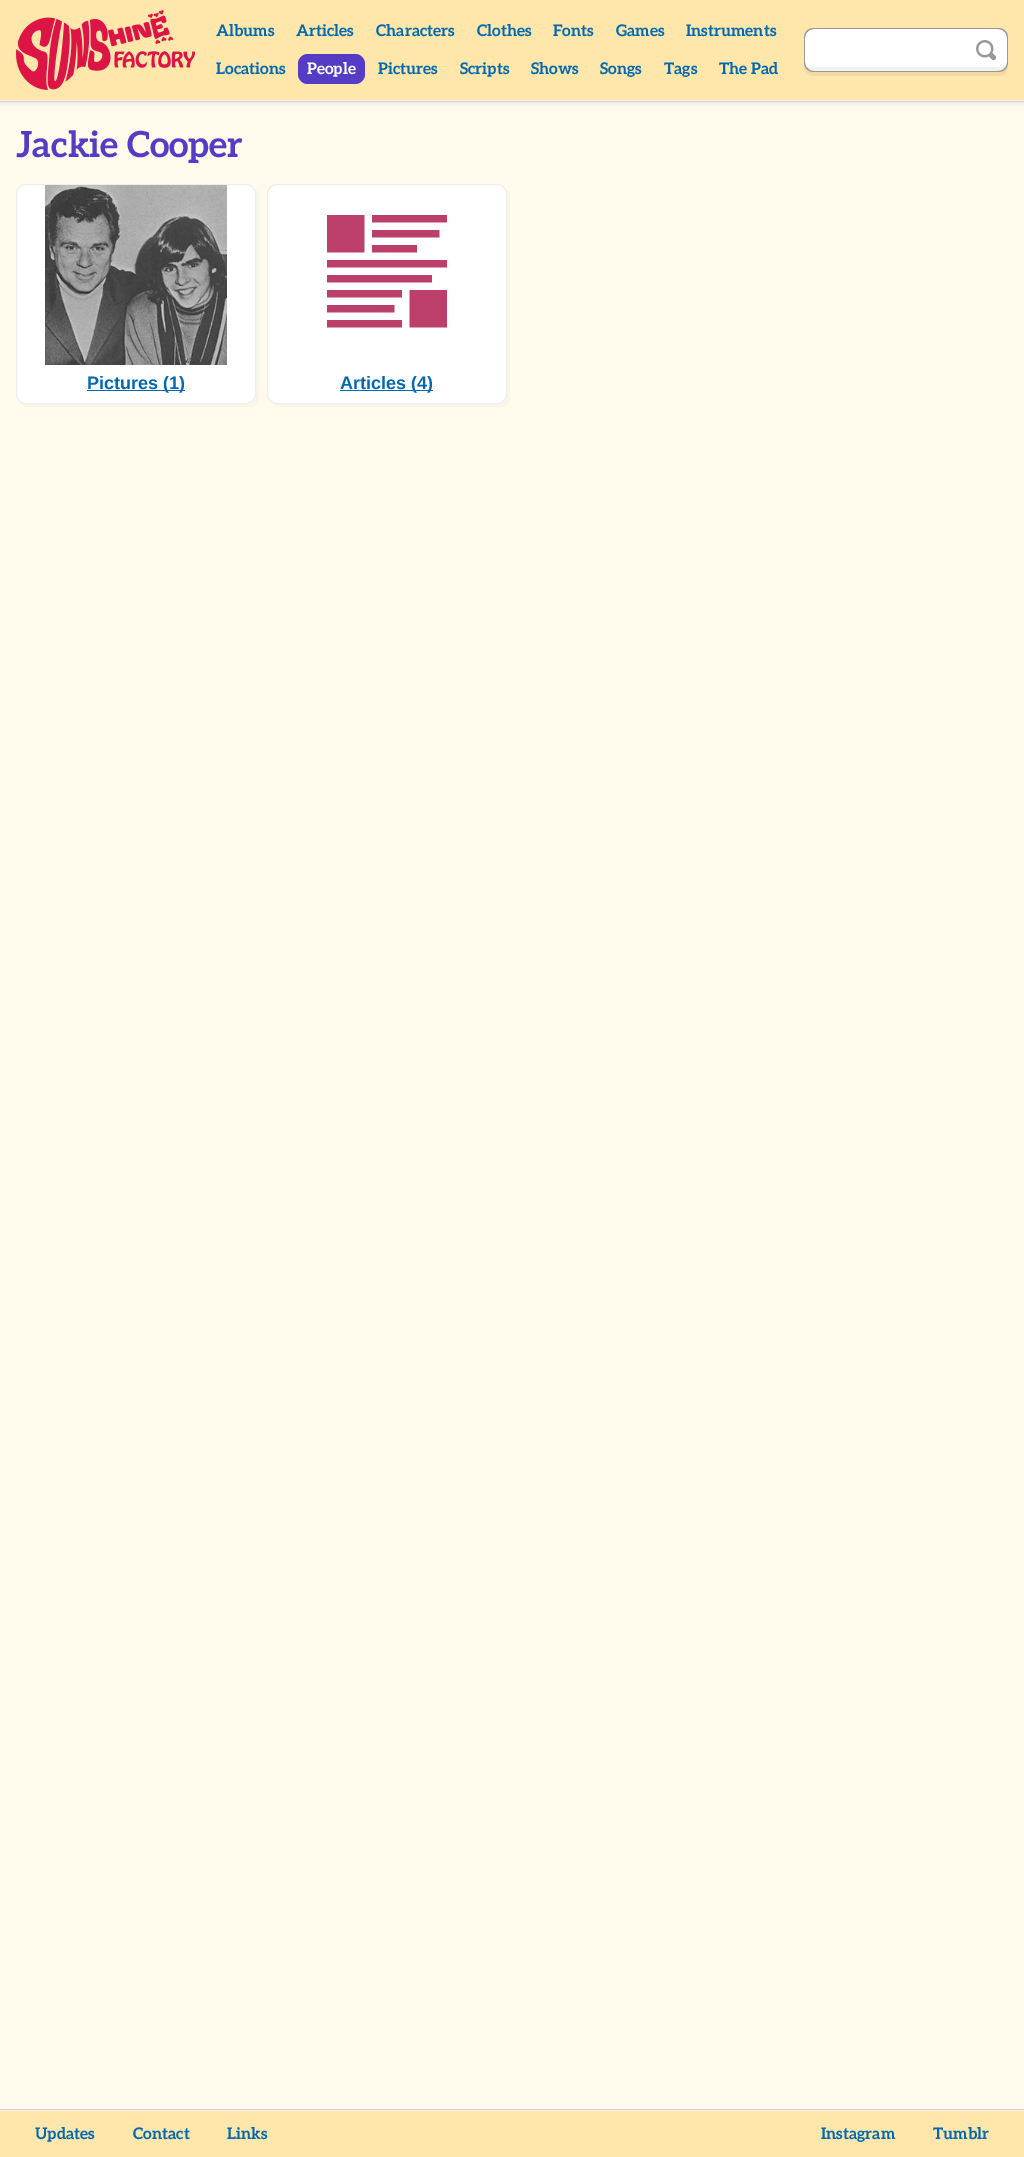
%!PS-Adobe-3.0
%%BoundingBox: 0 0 1024 2157
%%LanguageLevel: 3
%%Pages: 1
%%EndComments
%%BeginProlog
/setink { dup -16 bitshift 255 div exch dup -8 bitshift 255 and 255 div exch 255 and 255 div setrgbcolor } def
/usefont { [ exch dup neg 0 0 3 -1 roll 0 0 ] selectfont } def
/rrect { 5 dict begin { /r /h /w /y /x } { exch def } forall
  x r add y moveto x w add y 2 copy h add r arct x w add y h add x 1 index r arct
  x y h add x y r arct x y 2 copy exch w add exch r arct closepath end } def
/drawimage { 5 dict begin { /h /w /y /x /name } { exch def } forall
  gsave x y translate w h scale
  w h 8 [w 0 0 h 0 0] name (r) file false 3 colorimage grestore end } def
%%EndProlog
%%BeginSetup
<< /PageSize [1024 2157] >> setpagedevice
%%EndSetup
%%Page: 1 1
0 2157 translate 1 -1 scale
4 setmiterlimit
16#FFFBEC setink
0 0 1024 2157 rectfill
16#F6F1EA setink
6 setlinewidth
-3 -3 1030 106 rectstroke
16#CEC4E1 setink
2 setlinewidth
-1 -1 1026 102 rectstroke
16#FFF5DC setink
1 setlinewidth
-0.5 -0.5 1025 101 rectstroke
16#FFE6AA setink
0 0 1024 100 rectfill
(img1.raw) 16 10 179 80 drawimage
/Aleo-Bold 16 usefont
16#0069B1 setink
[
    [(Albums) 216 36]
    [(Articles) 296 36]
    [(Characters) 376 36]
    [(Clothes) 477 36]
    [(Fonts) 553 36]
    [(Games) 616 36]
    [(Instruments) 686 36]
    [(Locations) 216 74]
] { aload pop moveto show } forall
16#543CC4 setink
298 54 67 30 10 rrect fill
16#FFFFFF setink
307 74 moveto (People) show
16#0069B1 setink
[
    [(Pictures) 378 74]
    [(Scripts) 460 74]
    [(Shows) 531 74]
    [(Songs) 600 74]
    [(Tags) 664 74]
    [(The Pad) 719 74]
] { aload pop moveto show } forall
16#F2DBA2 setink
804 62 moveto 804 66 lineto 804 72 808 76 814 76 curveto 998 76 lineto 1004 76 1008 72 1008 66 curveto 1008 62 lineto 1008 68 1004 72 998 72 curveto 814 72 lineto 808 72 804 68 804 62 curveto closepath fill
gsave
814 29 moveto 964 29 lineto 964 71 lineto 814 71 lineto 809 71 805 67 805 62 curveto 805 38 lineto 805 33 809 29 814 29 curveto closepath clip newpath
16#F2F2F2 setink
805 67 159 4 rectfill
16#FFFFFF setink
814 29 moveto 964 29 lineto 964 67 lineto 805 67 lineto 805 38 lineto 805 33 809 29 814 29 curveto closepath fill
grestore
16#999999 setink
814 28 moveto 964 28 lineto 964 72 lineto 814 72 lineto 808 72 804 68 804 62 curveto 804 38 lineto 804 32 808 28 814 28 curveto closepath 814 29 moveto 964 29 lineto 964 71 lineto 814 71 lineto 809 71 805 67 805 62 curveto 805 38 lineto 805 33 809 29 814 29 curveto closepath eofill
gsave
964 29 moveto 998 29 lineto 1003 29 1007 33 1007 38 curveto 1007 62 lineto 1007 67 1003 71 998 71 curveto 964 71 lineto closepath clip newpath
16#F2F2F2 setink
964 67 43 4 rectfill
16#FFFFFF setink
964 29 moveto 998 29 lineto 1003 29 1007 33 1007 38 curveto 1007 67 lineto 964 67 lineto closepath fill
grestore
964 28 moveto 998 28 lineto 1004 28 1008 32 1008 38 curveto 1008 62 lineto 1008 68 1004 72 998 72 curveto 964 72 lineto closepath 964 29 moveto 998 29 lineto 1003 29 1007 33 1007 38 curveto 1007 62 lineto 1007 67 1003 71 998 71 curveto 964 71 lineto closepath eofill
(img2.raw) 976 40 20 20 drawimage
/Aleo-Bold 36 usefont
16#543CC4 setink
16 157 moveto (Jackie Cooper) show
16#FAF6E7 setink
21 402 moveto 22 405 25 407 29 407 curveto 249 407 lineto 255 407 259 403 259 397 curveto 259 197 lineto 259 193 257 190 254 189 curveto 255 190 256 192 256 194 curveto 256 394 lineto 256 400 252 404 246 404 curveto 26 404 lineto 24 404 22 403 21 402 curveto closepath fill
16#FFFFFF setink
16.5 184.5 239 219 9.5 rrect gsave fill grestore
16#EEEEEE setink
stroke
(img3.raw) 45 185 182 180 drawimage
16#0069B1 setink
87 390 98 1 rectfill
/LiberationSans-Bold 18 usefont
87 389 moveto (Pictures \(1\)) show
16#FAF6E7 setink
272 402 moveto 273 405 276 407 280 407 curveto 500 407 lineto 506 407 510 403 510 397 curveto 510 197 lineto 510 193 508 190 505 189 curveto 506 190 507 192 507 194 curveto 507 394 lineto 507 400 503 404 497 404 curveto 277 404 lineto 275 404 273 403 272 402 curveto closepath fill
16#FFFFFF setink
267.5 184.5 239 219 9.5 rrect gsave fill grestore
16#EEEEEE setink
stroke
(img4.raw) 327 215 120 113 drawimage
16#0069B1 setink
340 390 93 1 rectfill
340 389 moveto (Articles \(4\)) show
16#D4CBE2 setink
2 setlinewidth
-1 2110 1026 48 rectstroke
16#FFF5DC setink
1 setlinewidth
-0.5 2110.5 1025 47 rectstroke
16#FFE6AA setink
0 2111 1024 46 rectfill
/Aleo-Bold 16 usefont
16#0069B1 setink
[
    [(Updates) 35 2139]
    [(Contact) 133 2139]
    [(Links) 227 2139]
    [(Instagram) 821 2139]
    [(Tumblr) 933 2139]
] { aload pop moveto show } forall
showpage
%%EOF
